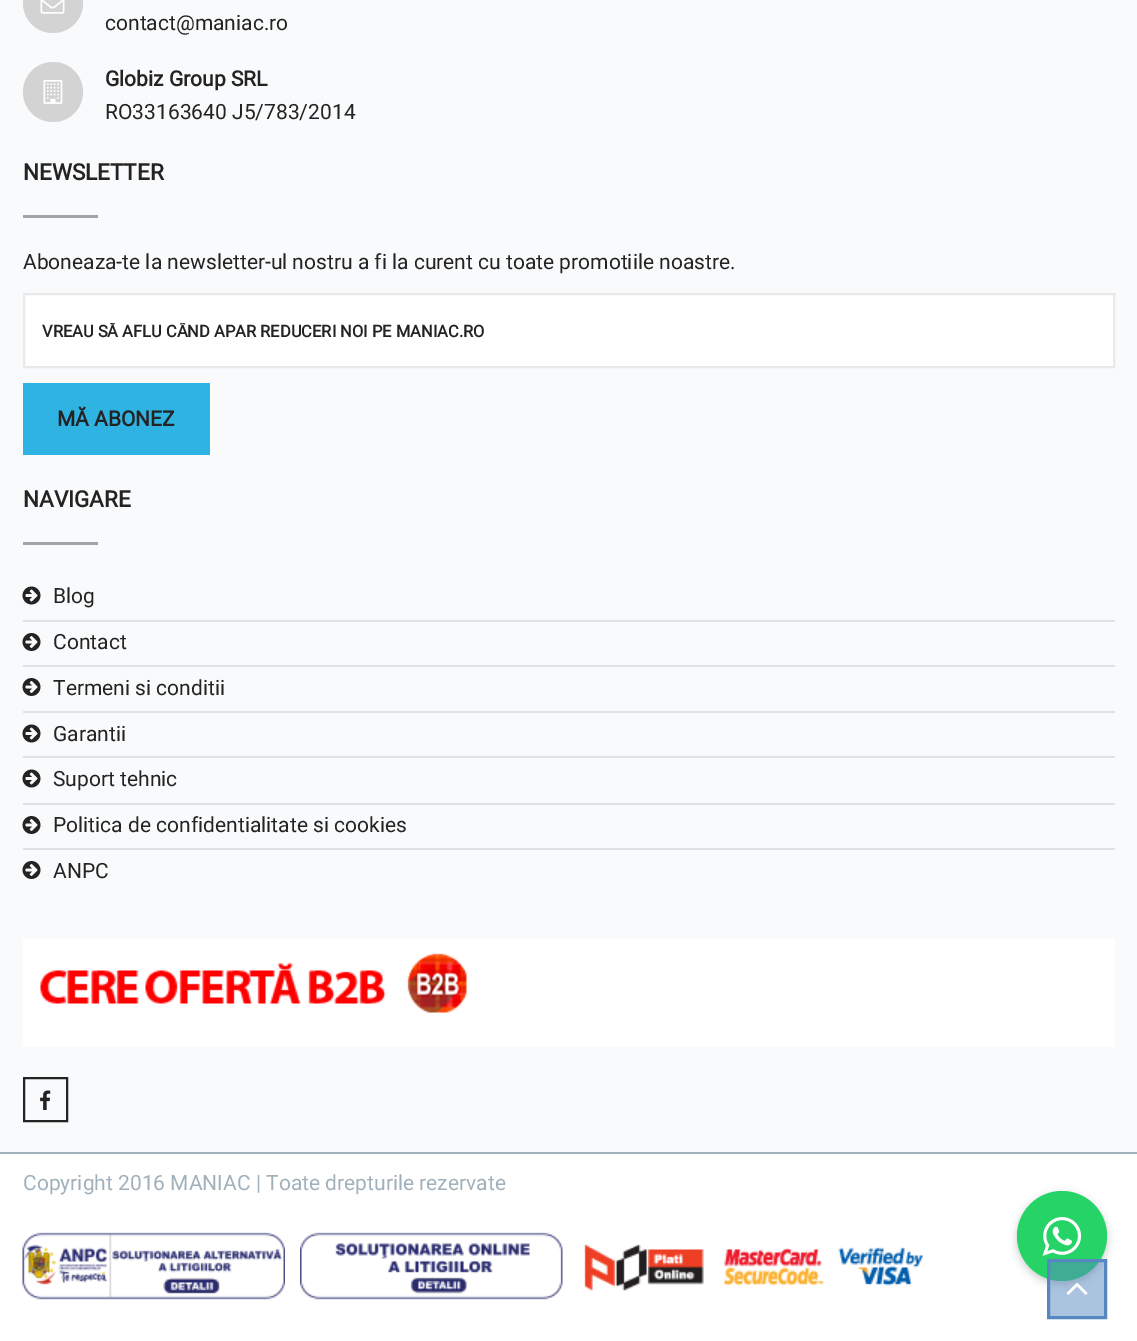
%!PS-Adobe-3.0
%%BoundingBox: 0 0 1137 1341
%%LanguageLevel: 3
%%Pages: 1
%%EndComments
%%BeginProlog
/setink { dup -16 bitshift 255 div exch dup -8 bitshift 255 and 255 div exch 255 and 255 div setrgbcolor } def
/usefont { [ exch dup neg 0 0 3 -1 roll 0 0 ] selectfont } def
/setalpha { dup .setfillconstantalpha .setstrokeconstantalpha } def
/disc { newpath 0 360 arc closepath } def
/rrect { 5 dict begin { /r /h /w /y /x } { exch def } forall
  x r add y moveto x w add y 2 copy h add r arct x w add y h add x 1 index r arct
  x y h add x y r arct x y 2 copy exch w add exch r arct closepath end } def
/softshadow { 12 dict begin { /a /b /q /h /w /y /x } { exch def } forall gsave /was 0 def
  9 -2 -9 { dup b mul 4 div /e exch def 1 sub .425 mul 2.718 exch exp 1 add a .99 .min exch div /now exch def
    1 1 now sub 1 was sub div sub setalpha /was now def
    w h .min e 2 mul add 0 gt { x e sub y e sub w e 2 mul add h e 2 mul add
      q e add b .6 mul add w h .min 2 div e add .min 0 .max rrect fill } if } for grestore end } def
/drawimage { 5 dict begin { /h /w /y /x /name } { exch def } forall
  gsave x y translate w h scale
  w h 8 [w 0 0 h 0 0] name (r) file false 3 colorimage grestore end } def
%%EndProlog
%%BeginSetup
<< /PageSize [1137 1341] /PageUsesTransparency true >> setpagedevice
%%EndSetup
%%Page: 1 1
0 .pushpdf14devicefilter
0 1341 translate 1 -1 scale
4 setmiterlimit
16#F9FAFB setink
0 0 1137 1341 rectfill
16#D3D3D3 setink
53 3 30 disc fill
(img1.raw) 40 0 25 14 drawimage
/Roboto-Regular 21 usefont
16#232323 setink
105 30 moveto (contact@maniac.ro) show
16#D3D3D3 setink
53 92 30 disc fill
(img2.raw) 43 80 20 24 drawimage
/Roboto-Bold 21 usefont
16#232323 setink
105 86 moveto (Globiz Group SRL) show
/Roboto-Regular 21 usefont
105 119 moveto (RO33163640 J5/783/2014) show
/Roboto-Bold 22.5 usefont
23 180 moveto (NEWSLETTER) show
16#A3A4A5 setink
23 215 75 3 rectfill
/Roboto-Regular 21 usefont
16#232323 setink
23 269 moveto (Aboneaza-te la newsletter-ul nostru a fi la curent cu toate promotiile noastre.) show
16#FFFFFF setink
24 294 moveto 1114 294 lineto 1114 367 lineto 24 367 lineto closepath gsave fill grestore
16#E9E9E9 setink
2 setlinewidth
stroke
gsave
42 323 1053 19 rectclip
/Roboto-Bold 16.5 usefont
16#232323 setink
42 337 moveto (VREAU SĂ AFLU CÂND APAR REDUCERI NOI PE MANIAC.RO) show
grestore
16#2EB3E2 setink
23 383 187 72 rectfill
/Roboto-Bold 21 usefont
16#232323 setink
57 426 moveto (MĂ ABONEZ) show
/Roboto-Bold 22.5 usefont
23 507 moveto (NAVIGARE) show
16#A3A4A5 setink
23 542 75 3 rectfill
(img3.raw) 22 586 19 19 drawimage
/Roboto-Regular 21 usefont
16#232323 setink
53 603 moveto (Blog) show
16#E0E1E2 setink
23 620 1092 2 rectfill
(img4.raw) 22 633 19 18 drawimage
16#232323 setink
53 649 moveto (Contact) show
16#E0E1E2 setink
23 665 1092 2 rectfill
(img4.raw) 22 678 19 18 drawimage
16#232323 setink
53 695 moveto (Termeni si conditii) show
16#E0E1E2 setink
23 711 1092 2 rectfill
(img3.raw) 22 724 19 19 drawimage
16#232323 setink
53 741 moveto (Garantii) show
16#E0E1E2 setink
23 756 1092 2 rectfill
(img3.raw) 22 769 19 19 drawimage
16#232323 setink
53 786 moveto (Suport tehnic) show
16#E0E1E2 setink
23 803 1092 2 rectfill
(img4.raw) 22 816 19 18 drawimage
16#232323 setink
53 832 moveto (Politica de confidentialitate si cookies) show
16#E0E1E2 setink
23 848 1092 2 rectfill
(img4.raw) 22 861 19 18 drawimage
16#232323 setink
53 878 moveto (ANPC) show
16#FFFFFF setink
23 939 1092 108 rectfill
(img5.raw) 40 953 427 60 drawimage
16#232323 setink
24 1078 43 43 rectstroke
(img6.raw) 40 1090 11 20 drawimage
16#FFFFFF setink
0 1154 1137 187 rectfill
16#A1B1BC setink
0 1152 1137 2 rectfill
23 1190 moveto (Copyright 2016 MANIAC | Toate drepturile rezervate) show
(img7.raw) 22 1232 263 68 drawimage
(img8.raw) 300 1232 263 68 drawimage
(img9.raw) 584 1244 339 47 drawimage
16#000000 setink
1017 1194 90 90 45 4 0.2 softshadow
16#25D366 setink
1062 1236 45 disc fill
0.5 setalpha
16#5687BF setink
1048.5 1260.5 moveto 1105.5 1260.5 lineto 1105.5 1317.5 lineto 1048.5 1317.5 lineto closepath fill
1 setalpha
3 setlinewidth
1048.5 1260.5 moveto 1105.5 1260.5 lineto 1105.5 1317.5 lineto 1048.5 1317.5 lineto closepath stroke
(img10.raw) 1066 1282 22 13 drawimage
(img11.raw) 1042 1217 40 39 drawimage
.poppdf14devicefilter showpage
%%EOF
